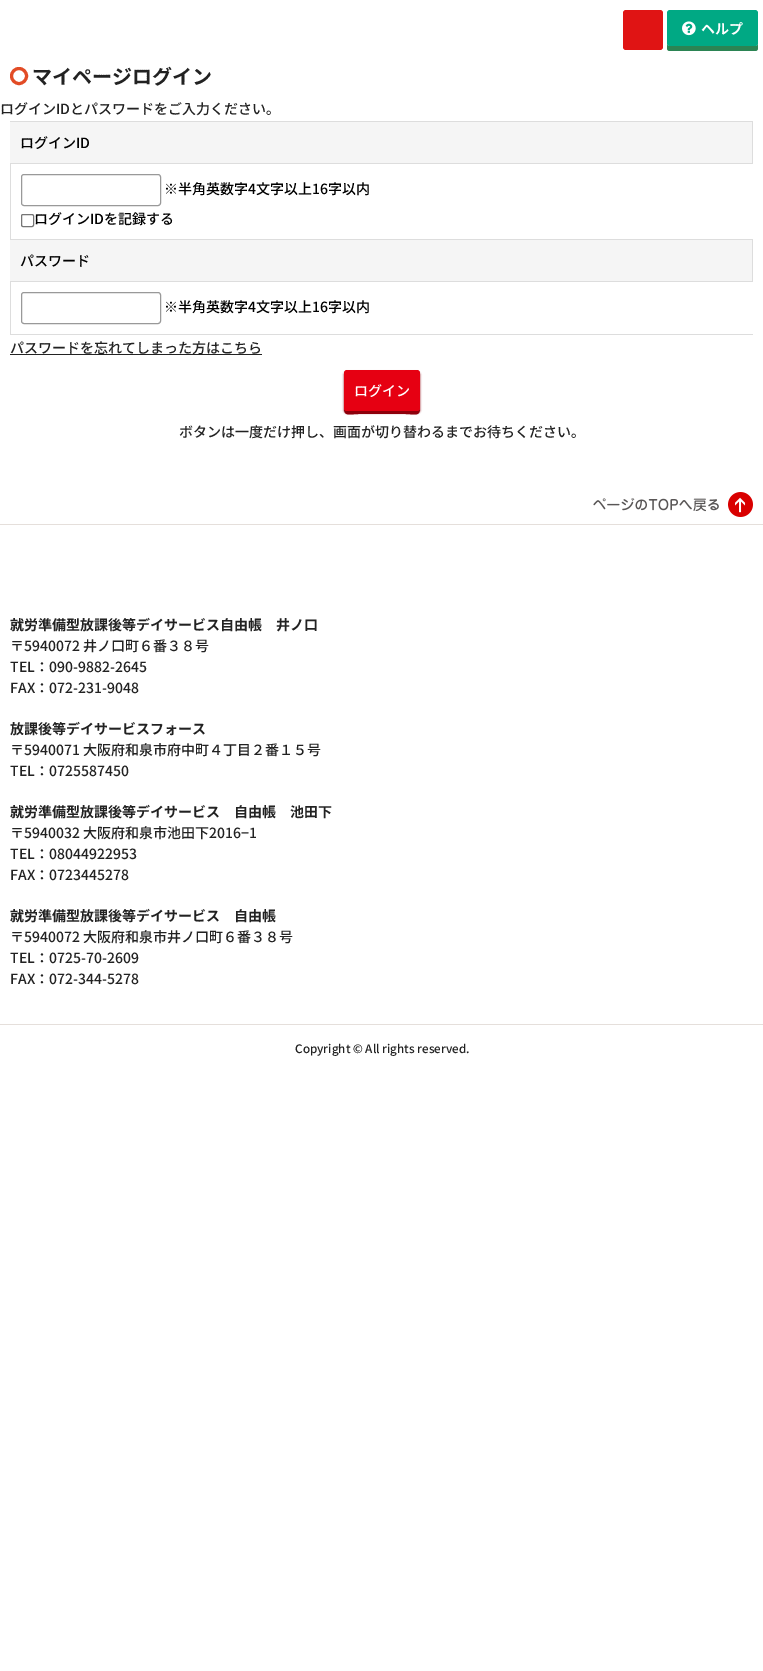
%!PS-Adobe-3.0
%%BoundingBox: 0 0 763 1671
%%LanguageLevel: 3
%%Pages: 1
%%EndComments
%%BeginProlog
/setink { dup -16 bitshift 255 div exch dup -8 bitshift 255 and 255 div exch 255 and 255 div setrgbcolor } def
/usefont { [ exch dup neg 0 0 3 -1 roll 0 0 ] selectfont } def
/setalpha { dup .setfillconstantalpha .setstrokeconstantalpha } def
/disc { newpath 0 360 arc closepath } def
/rrect { 5 dict begin { /r /h /w /y /x } { exch def } forall
  x r add y moveto x w add y 2 copy h add r arct x w add y h add x 1 index r arct
  x y h add x y r arct x y 2 copy exch w add exch r arct closepath end } def
/softshadow { 12 dict begin { /a /b /q /h /w /y /x } { exch def } forall gsave /was 0 def
  9 -2 -9 { dup b mul 4 div /e exch def 1 sub .425 mul 2.718 exch exp 1 add a .99 .min exch div /now exch def
    1 1 now sub 1 was sub div sub setalpha /was now def
    w h .min e 2 mul add 0 gt { x e sub y e sub w e 2 mul add h e 2 mul add
      q e add b .6 mul add w h .min 2 div e add .min 0 .max rrect fill } if } for grestore end } def
/drawimage { 5 dict begin { /h /w /y /x /name } { exch def } forall
  gsave x y translate w h scale
  w h 8 [w 0 0 h 0 0] name (r) file false 3 colorimage grestore end } def
%%EndProlog
%%BeginSetup
<< /PageSize [763 1671] /PageUsesTransparency true >> setpagedevice
%%EndSetup
%%Page: 1 1
0 .pushpdf14devicefilter
0 1671 translate 1 -1 scale
4 setmiterlimit
16#FFFFFF setink
0 0 763 1671 rectfill
16#E01414 setink
623 10 40 40 3 rrect fill
16#2B8453 setink
667 43 moveto 667 48 lineto 667 50 668 51 670 51 curveto 755 51 lineto 757 51 758 50 758 48 curveto 758 43 lineto 758 45 757 46 755 46 curveto 670 46 lineto 668 46 667 45 667 43 curveto closepath fill
16#00A984 setink
667 10 91 36 3 rrect fill
(img1.raw) 682 21 14 15 drawimage
/NotoSansJP-Bold 14 usefont
16#FFFFFF setink
701 34 moveto (ヘルプ) show
16#E24C26 setink
3 setlinewidth
19 76 7.5 disc stroke
/NotoSansJP-Bold 20 usefont
16#222222 setink
32 84 moveto (マイページログイン) show
/NotoSansJP-Medium 14 usefont
0 114 moveto (ログインIDとパスワードをご入力ください。) show
[
    [10 334 743 1 16#DDDDDD]
    [10 122 742 41 16#F5F5F5]
    [10 121 743 1 16#DDDDDD]
    [752 121 1 42 16#DDDDDD]
] { aload pop setink rectfill } forall
16#000000 setink
20 148 moveto (ログインID) show
16#DDDDDD setink
10 163 743 1 rectfill
10 163 1 76 rectfill
16#999999 setink
1 setlinewidth
21.5 174.5 139 31 2.5 rrect stroke
16#000000 setink
164 194 moveto (※半角英数字4文字以上16字以内) show
16#767676 setink
21.5 214.5 12 12 1.5 rrect stroke
16#000000 setink
34 224 moveto (ログインIDを記録する) show
[
    [10 240 742 41 16#F5F5F5]
    [10 239 743 1 16#DDDDDD]
    [752 239 1 42 16#DDDDDD]
] { aload pop setink rectfill } forall
16#000000 setink
20 266 moveto (パスワード) show
16#DDDDDD setink
10 281 743 1 rectfill
10 281 1 53 rectfill
16#999999 setink
21.5 292.5 139 31 2.5 rrect stroke
16#000000 setink
164 312 moveto (※半角英数字4文字以上16字以内) show
16#232323 setink
10 354 252 1 rectfill
16#222222 setink
10 353 moveto (パスワードを忘れてしまった方はこちら) show
16#8D000B setink
344 372 76 41 3 1 1 softshadow
344 408 moveto 344 417 349 414 359 414 curveto 405 414 lineto 415 414 420 417 420 408 curveto 420 410 419 411 417 411 curveto 347 411 lineto 345 411 344 410 344 408 curveto closepath fill
16#E60012 setink
344 370 76 41 3 rrect fill
16#FFFFFF setink
354 396 moveto (ログイン) show
16#222222 setink
179 437 moveto (ボタンは一度だけ押し、画面が切り替わるまでお待ちください。) show
(img2.raw) 593 492 160 25 drawimage
16#E5DFDB setink
0 524 763 1 rectfill
/NotoSansJP-Bold 14 usefont
16#222222 setink
10 630 moveto (就労準備型放課後等デイサービス自由帳　井ノ口) show
/NotoSansJP-Medium 14 usefont
[
    [(〒5940072 井ノ口町６番３８号) 10 651]
    [(TEL：090-9882-2645) 10 672]
    [(FAX：072-231-9048) 10 693]
] { aload pop moveto show } forall
/NotoSansJP-Bold 14 usefont
10 734 moveto (放課後等デイサービスフォース) show
/NotoSansJP-Medium 14 usefont
10 755 moveto (〒5940071 大阪府和泉市府中町４丁目２番１５号) show
10 776 moveto (TEL：0725587450) show
/NotoSansJP-Bold 14 usefont
10 817 moveto (就労準備型放課後等デイサービス　自由帳　池田下) show
/NotoSansJP-Medium 14 usefont
[
    [(〒5940032 大阪府和泉市池田下2016−1) 10 838]
    [(TEL：08044922953) 10 859]
    [(FAX：0723445278) 10 880]
] { aload pop moveto show } forall
/NotoSansJP-Bold 14 usefont
10 921 moveto (就労準備型放課後等デイサービス　自由帳) show
/NotoSansJP-Medium 14 usefont
[
    [(〒5940072 大阪府和泉市井ノ口町６番３８号) 10 942]
    [(TEL：0725-70-2609) 10 963]
    [(FAX：072-344-5278) 10 984]
] { aload pop moveto show } forall
16#E5DFDB setink
0 1024 763 1 rectfill
/NotoSansJP-Medium 11.7 usefont
16#222222 setink
295 1053 moveto (Copyright © All rights reserved.) show
.poppdf14devicefilter showpage
%%EOF
